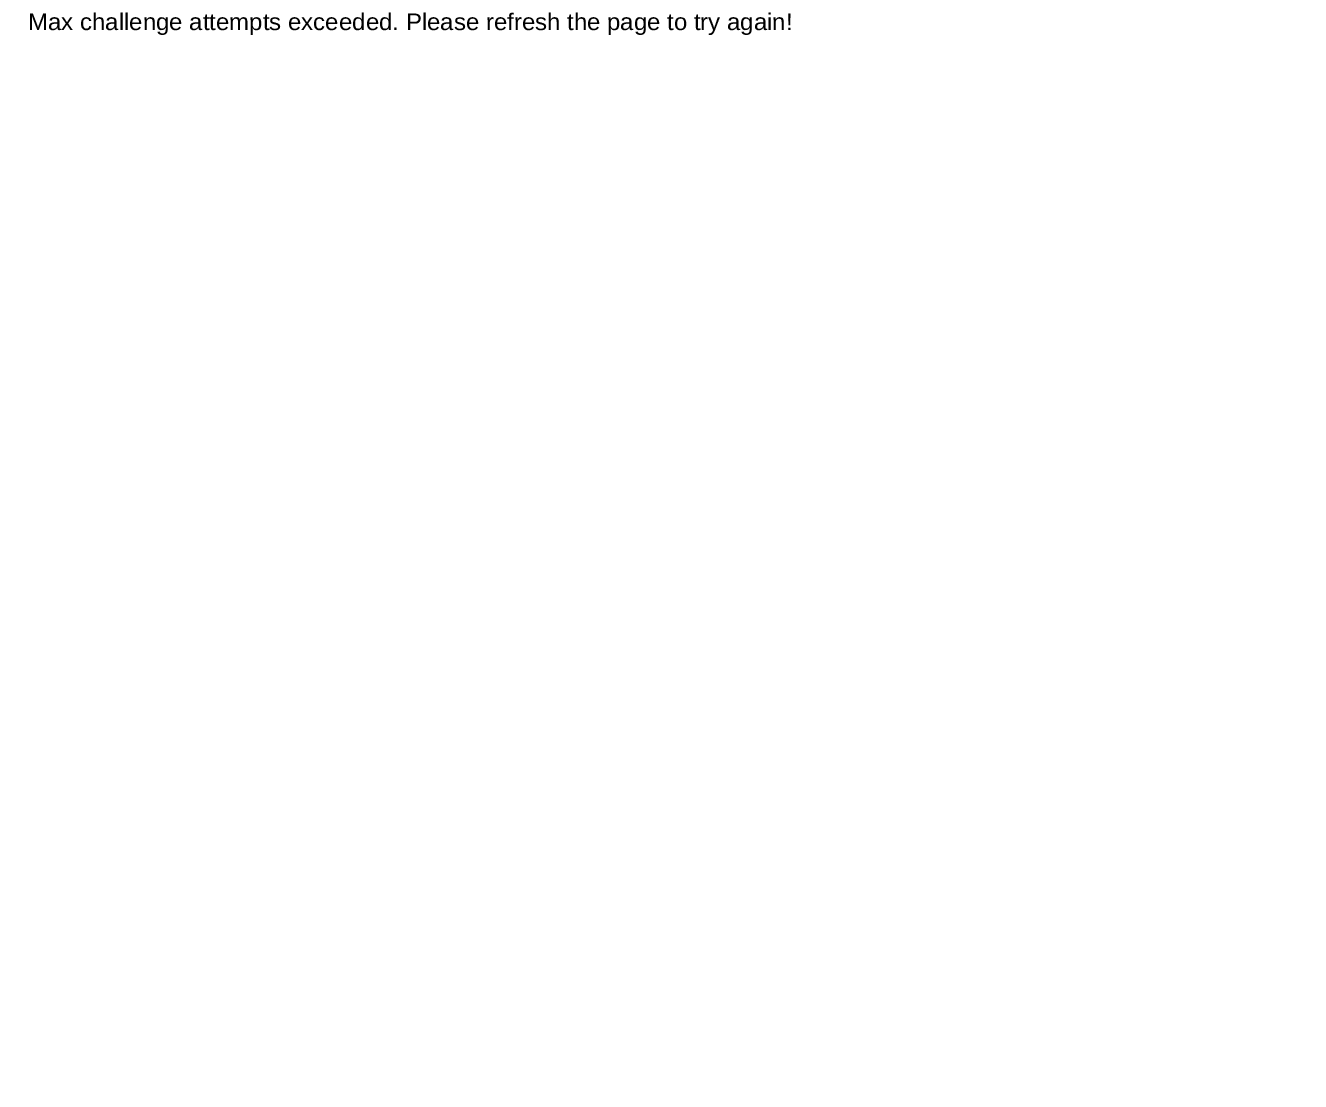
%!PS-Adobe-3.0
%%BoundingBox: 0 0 1326 1107
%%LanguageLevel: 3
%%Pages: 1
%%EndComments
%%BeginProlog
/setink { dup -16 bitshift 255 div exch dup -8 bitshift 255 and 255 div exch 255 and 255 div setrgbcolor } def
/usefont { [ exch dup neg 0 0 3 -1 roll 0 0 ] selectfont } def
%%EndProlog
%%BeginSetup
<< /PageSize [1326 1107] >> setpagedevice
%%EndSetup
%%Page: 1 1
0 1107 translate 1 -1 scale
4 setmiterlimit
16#FFFFFF setink
0 0 1326 1107 rectfill
/LiberationSans-Regular 24 usefont
16#000000 setink
28 30 moveto (Max challenge attempts exceeded. Please refresh the page to try again!) show
showpage
%%EOF
